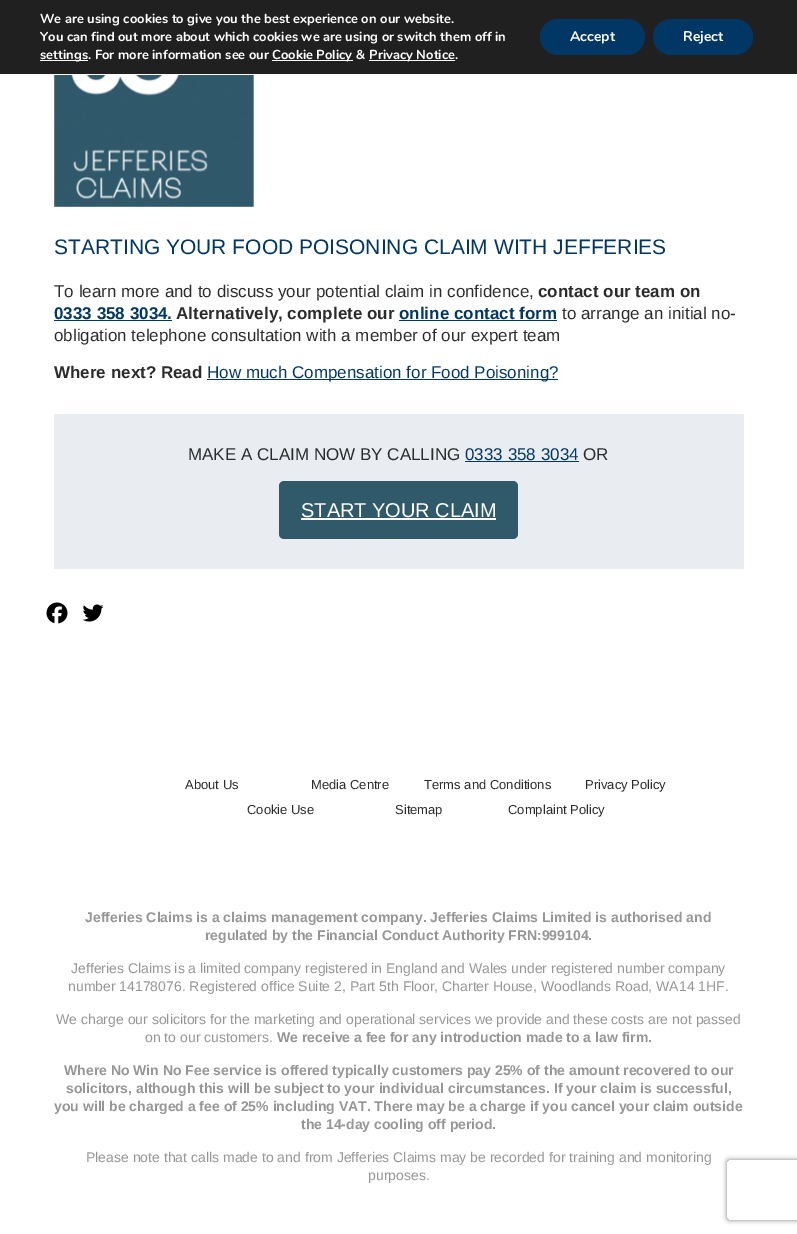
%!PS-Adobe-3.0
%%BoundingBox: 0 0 797 1234
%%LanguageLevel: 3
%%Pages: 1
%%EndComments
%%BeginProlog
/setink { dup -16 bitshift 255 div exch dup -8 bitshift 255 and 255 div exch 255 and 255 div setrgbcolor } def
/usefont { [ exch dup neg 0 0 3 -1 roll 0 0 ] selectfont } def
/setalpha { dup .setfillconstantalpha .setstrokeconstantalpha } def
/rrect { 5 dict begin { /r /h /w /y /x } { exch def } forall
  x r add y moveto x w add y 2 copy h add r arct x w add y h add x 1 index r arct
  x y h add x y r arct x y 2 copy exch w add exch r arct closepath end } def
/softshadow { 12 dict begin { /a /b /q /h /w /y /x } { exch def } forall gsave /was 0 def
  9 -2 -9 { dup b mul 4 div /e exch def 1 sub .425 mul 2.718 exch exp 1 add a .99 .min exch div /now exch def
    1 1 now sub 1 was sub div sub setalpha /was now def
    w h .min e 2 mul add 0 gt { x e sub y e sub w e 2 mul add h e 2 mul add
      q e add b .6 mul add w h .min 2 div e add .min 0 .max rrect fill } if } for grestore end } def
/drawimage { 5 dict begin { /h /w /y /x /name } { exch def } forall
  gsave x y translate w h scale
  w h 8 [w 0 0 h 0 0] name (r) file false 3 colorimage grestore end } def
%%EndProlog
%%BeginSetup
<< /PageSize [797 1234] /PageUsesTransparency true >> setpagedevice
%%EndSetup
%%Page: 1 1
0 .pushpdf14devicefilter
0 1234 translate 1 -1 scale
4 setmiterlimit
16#FFFFFF setink
0 0 797 1234 rectfill
16#202020 setink
0 0 797 74 rectfill
/Nunito-Bold 13 usefont
16#FFFFFF setink
40 23 moveto (We are using cookies to give you the best experience on our website.) show
40 41 moveto (You can find out more about which cookies we are using or switch them off in) show
40 60 48 1 rectfill
40 59 moveto (settings. For more information see our) show
272 60 81 1 rectfill
272 59 moveto (Cookie Policy &) show
369 60 86 1 rectfill
369 59 moveto (Privacy Notice.) show
16#003764 setink
540 19 105 36 18 rrect fill
/Nunito-Bold 14 usefont
16#FFFFFF setink
570 41 moveto (Accept) show
16#003764 setink
653 19 100 36 18 rrect fill
16#FFFFFF setink
683 41 moveto (Reject) show
(img1.raw) 54 75 200 132 drawimage
/LiberationSans-Regular 21 usefont
16#003764 setink
54 254 moveto (STARTING YOUR FOOD POISONING CLAIM WITH JEFFERIES) show
/LiberationSans-Regular 17 usefont
16#2C2C2C setink
54 297 moveto (To learn more and to discuss your potential claim in confidence,) show
/LiberationSans-Bold 17 usefont
538 297 moveto (contact our team on) show
16#003764 setink
54 319 moveto (0333 358 3034.) show
54 320 118 1 rectfill
16#2C2C2C setink
176 319 moveto (Alternatively, complete our) show
16#003764 setink
399 319 moveto (online contact form) show
399 320 158 1 rectfill
/LiberationSans-Regular 17 usefont
16#2C2C2C setink
562 319 moveto (to arrange an initial no-) show
54 341 moveto (obligation telephone consultation with a member of our expert team) show
/LiberationSans-Bold 17 usefont
54 378 moveto (Where next? Read) show
16#003764 setink
207 379 351 1 rectfill
/LiberationSans-Regular 17 usefont
207 378 moveto (How much Compensation for Food Poisoning?) show
16#E9ECF1 setink
54 414 690 155 rectfill
16#2C2C2C setink
188 460 moveto (MAKE A CLAIM NOW BY CALLING) show
16#003764 setink
465 460 moveto (0333 358 3034) show
465 461 114 1 rectfill
16#2C2C2C setink
583 460 moveto (OR) show
16#30596A setink
279 481 239 58 5 rrect fill
/LiberationSans-Regular 20 usefont
16#FFFFFF setink
301 517 moveto (START YOUR CLAIM) show
301 518 195 2 rectfill
(img2.raw) 46 602 22 22 drawimage
(img3.raw) 82 604 22 18 drawimage
/LiberationSans-Regular 13 usefont
16#2C2C2C setink
[
    [(About Us) 185 789]
    [(Media Centre) 311 789]
    [(Terms and Conditions) 424 789]
    [(Privacy Policy) 585 789]
    [(Cookie Use) 247 814]
    [(Sitemap) 395 814]
    [(Complaint Policy) 508 814]
] { aload pop moveto show } forall
/LiberationSans-Bold 14 usefont
16#969696 setink
85 922 moveto (Jefferies Claims is a claims management company. Jefferies Claims Limited is authorised and) show
205 940 moveto (regulated by the Financial Conduct Authority FRN:999104.) show
/LiberationSans-Regular 14 usefont
[
    [(Jefferies Claims is a limited company registered in England and Wales under registered number company) 71 973]
    [(number 14178076. Registered office Suite 2, Part 5th Floor, Charter House, Woodlands Road, WA14 1HF.) 68 991]
    [(We charge our solicitors for the marketing and operational services we provide and these costs are not passed) 56 1024]
    [(on to our customers.) 145 1042]
] { aload pop moveto show } forall
/LiberationSans-Bold 14 usefont
[
    [(We receive a fee for any introduction made to a law firm.) 277 1042]
    [(Where No Win No Fee service is offered typically customers pay 25% of the amount recovered to our) 64 1075]
    [(solicitors, although this will be subject to your individual circumstances. If your claim is successful,) 66 1093]
    [(you will be charged a fee of 25% including VAT. There may be a charge if you cancel your claim outside) 54 1111]
    [(the 14-day cooling off period.) 301 1129]
] { aload pop moveto show } forall
/LiberationSans-Regular 14 usefont
86 1162 moveto (Please note that calls made to and from Jefferies Claims may be recorded for training and monitoring) show
368 1180 moveto (purposes.) show
gsave
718 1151 moveto 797 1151 lineto 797 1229 lineto 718 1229 lineto closepath 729 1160 moveto 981 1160 lineto 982 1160 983 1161 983 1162 curveto 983 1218 lineto 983 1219 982 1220 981 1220 curveto 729 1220 lineto 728 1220 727 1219 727 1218 curveto 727 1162 lineto 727 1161 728 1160 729 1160 curveto closepath eoclip newpath
16#808080 setink
727 1160 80 60 2 2.5 1 softshadow
grestore
.poppdf14devicefilter showpage
%%EOF
